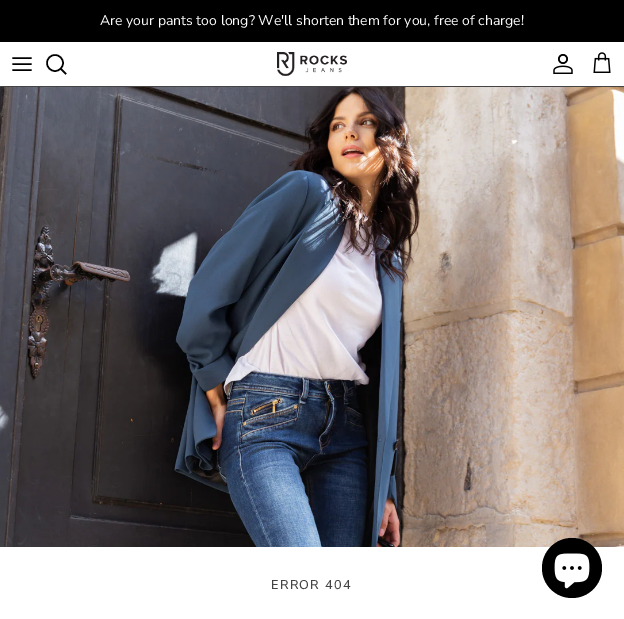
%!PS-Adobe-3.0
%%BoundingBox: 0 0 624 619
%%LanguageLevel: 3
%%Pages: 1
%%EndComments
%%BeginProlog
/setink { dup -16 bitshift 255 div exch dup -8 bitshift 255 and 255 div exch 255 and 255 div setrgbcolor } def
/usefont { [ exch dup neg 0 0 3 -1 roll 0 0 ] selectfont } def
/disc { newpath 0 360 arc closepath } def
/drawimage { 5 dict begin { /h /w /y /x /name } { exch def } forall
  gsave x y translate w h scale
  w h 8 [w 0 0 h 0 0] name (r) file false 3 colorimage grestore end } def
%%EndProlog
%%BeginSetup
<< /PageSize [624 619] >> setpagedevice
%%EndSetup
%%Page: 1 1
0 619 translate 1 -1 scale
4 setmiterlimit
16#FFFFFF setink
0 0 624 619 rectfill
16#000000 setink
0 0 624 42 rectfill
/NunitoSans-ExtraLight 14 usefont
16#FFFFFF setink
100 25 moveto (Are your pants too long? We'll shorten them for you, free of charge!) show
16#444444 setink
0 86 624 1 rectfill
16#000000 setink
1.5 setlinewidth
1 setlinecap
1 setlinejoin
13 64 moveto 31 64 lineto 13 58 moveto 31 58 lineto 13 70 moveto 31 70 lineto stroke
0 setlinecap
0 setlinejoin
55 63 8 disc stroke
2 setlinecap
61 69 moveto 65.5 73.5 lineto stroke
(img1.raw) 277 52 70 24 drawimage
(img2.raw) 553 54 20 20 drawimage
(img3.raw) 593 52 18 21 drawimage
(img4.raw) 0 87 624 460 drawimage
/NunitoSans-Medium 12.75 usefont
16#444444 setink
271 589 moveto 1.25 0 (ERROR 404) ashow
16#000000 setink
572 568 30 disc fill
(img5.raw) 554 553 36 36 drawimage
showpage
%%EOF
